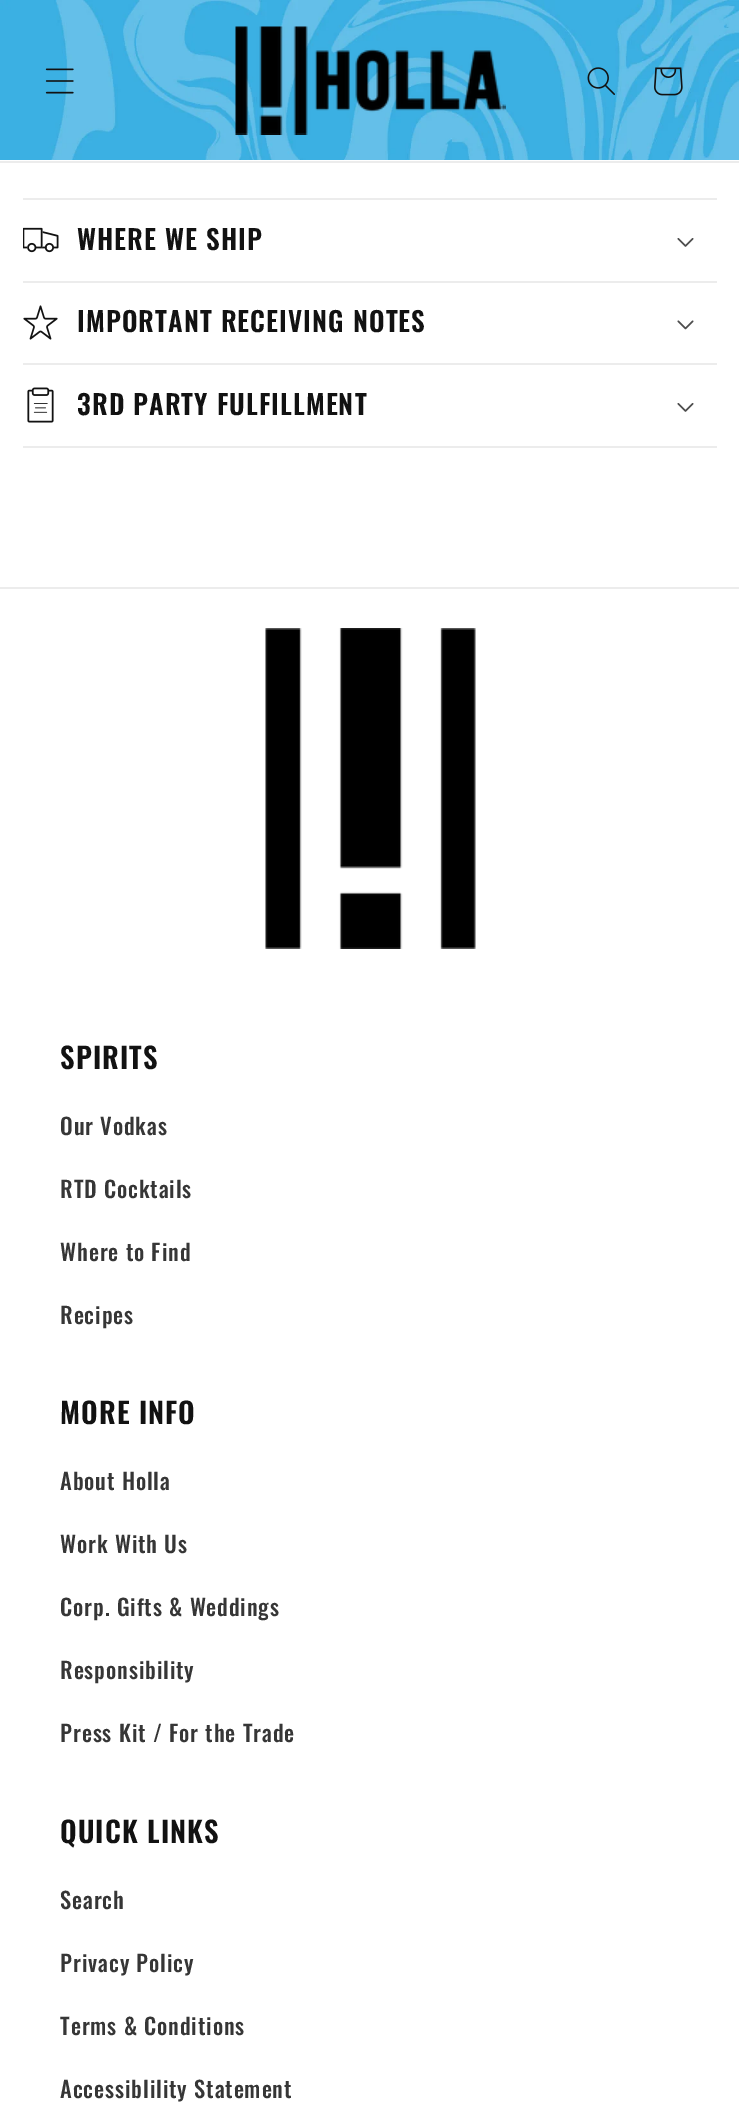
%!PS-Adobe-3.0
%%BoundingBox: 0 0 739 2125
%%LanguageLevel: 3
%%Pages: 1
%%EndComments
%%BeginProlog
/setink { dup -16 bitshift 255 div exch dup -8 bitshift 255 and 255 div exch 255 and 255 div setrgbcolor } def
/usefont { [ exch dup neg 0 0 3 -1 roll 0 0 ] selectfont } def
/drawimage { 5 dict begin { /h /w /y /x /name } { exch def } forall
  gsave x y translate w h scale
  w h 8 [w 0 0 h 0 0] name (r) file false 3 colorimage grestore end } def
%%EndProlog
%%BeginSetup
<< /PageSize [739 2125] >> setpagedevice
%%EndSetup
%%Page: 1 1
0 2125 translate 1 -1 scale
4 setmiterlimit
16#FFFFFF setink
0 0 739 2125 rectfill
16#ECECEC setink
0 161 739 2 rectfill
(img1.raw) 0 0 739 160 drawimage
(img2.raw) 45 68 29 26 drawimage
(img3.raw) 235 26 271 109 drawimage
(img4.raw) 587 67 28 28 drawimage
(img5.raw) 654 67 29 29 drawimage
23 198 694 2 rectfill
23 281 694 2 rectfill
(img6.raw) 23 227 36 26 drawimage
/Oswald-SemiBold 27 usefont
16#121212 setink
77 250 moveto 1.1 0 (WHERE WE SHIP) ashow
(img7.raw) 677 238 17 9 drawimage
16#ECECEC setink
23 363 694 2 rectfill
(img8.raw) 23 305 35 35 drawimage
16#121212 setink
77 332 moveto 1.1 0 (IMPORTANT RECEIVING NOTES) ashow
(img9.raw) 677 320 17 10 drawimage
16#ECECEC setink
23 446 694 2 rectfill
(img10.raw) 27 387 27 36 drawimage
16#121212 setink
77 415 moveto 1.1 0 (3RD PARTY FULFILLMENT) ashow
(img7.raw) 677 403 17 9 drawimage
16#ECECEC setink
0 587 739 2 rectfill
(img11.raw) 265 628 211 321 drawimage
/Oswald-SemiBold 28.75 usefont
16#121212 setink
60 1069 moveto 1.1 0 (SPIRITS) ashow
/Oswald-Medium 22.5 usefont
16#363636 setink
60 1135 moveto 0.9 0 (Our Vodkas) ashow
60 1198 moveto 0.9 0 (RTD Cocktails) ashow
60 1261 moveto 0.9 0 (Where to Find) ashow
60 1324 moveto 0.9 0 (Recipes) ashow
/Oswald-SemiBold 28.75 usefont
16#121212 setink
60 1424 moveto 1.1 0 (MORE INFO) ashow
/Oswald-Medium 22.5 usefont
16#363636 setink
60 1490 moveto 0.9 0 (About Holla) ashow
60 1553 moveto 0.9 0 (Work With Us) ashow
60 1616 moveto 0.9 0 (Corp. Gifts & Weddings) ashow
60 1679 moveto 0.9 0 (Responsibility) ashow
60 1742 moveto 0.9 0 (Press Kit / For the Trade) ashow
/Oswald-SemiBold 28.75 usefont
16#121212 setink
60 1843 moveto 1.1 0 (QUICK LINKS) ashow
/Oswald-Medium 22.5 usefont
16#363636 setink
60 1909 moveto 0.9 0 (Search) ashow
60 1972 moveto 0.9 0 (Privacy Policy) ashow
60 2035 moveto 0.9 0 (Terms & Conditions) ashow
60 2098 moveto 0.9 0 (Accessiblility Statement) ashow
showpage
%%EOF
